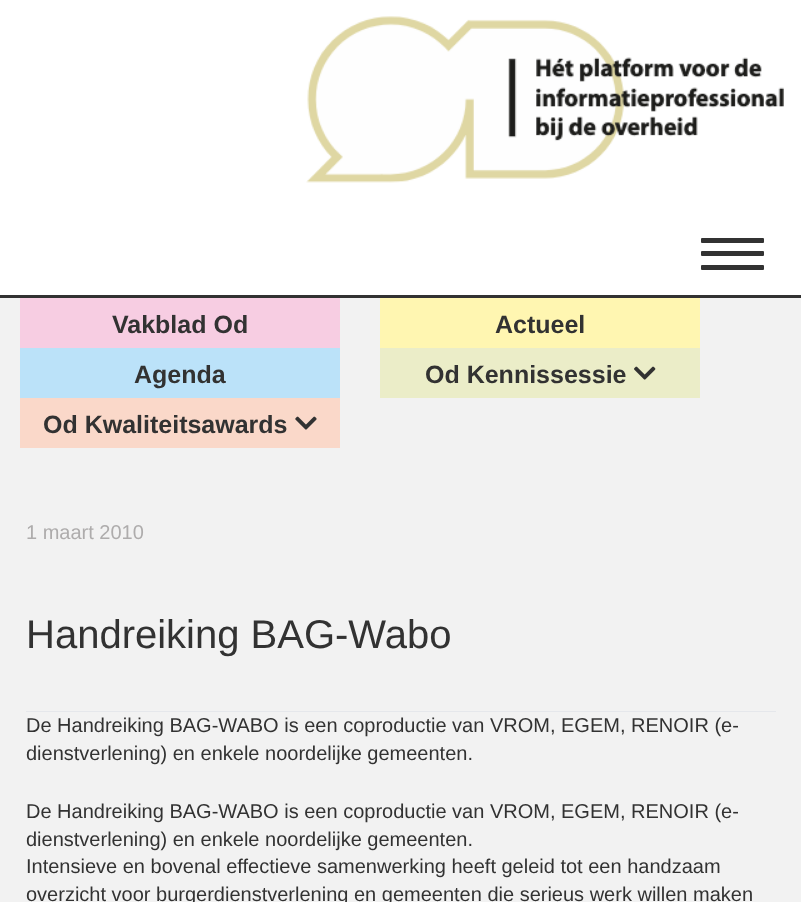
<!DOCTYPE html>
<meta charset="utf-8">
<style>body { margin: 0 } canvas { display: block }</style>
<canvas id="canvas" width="801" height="902"></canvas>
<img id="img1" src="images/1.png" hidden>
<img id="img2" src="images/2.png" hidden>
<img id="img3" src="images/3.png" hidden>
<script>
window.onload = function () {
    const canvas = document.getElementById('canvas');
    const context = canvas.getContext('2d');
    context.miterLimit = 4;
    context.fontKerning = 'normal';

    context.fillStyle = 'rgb(242, 242, 242)';
    context.fillRect(0, 0, 801, 902);
    context.fillStyle = 'rgb(255, 255, 255)';
    context.fillRect(0, 0, 801, 295);
    context.fillStyle = 'rgb(50, 50, 50)';
    context.fillRect(0, 295, 801, 3);
    context.drawImage(document.getElementById('img1'), 306, 16, 478, 167);
    context.beginPath();
    context.roundRect(701, 251, 63, 5, 1);
    context.fill();
    context.beginPath();
    context.roundRect(701, 238, 63, 5, 1);
    context.fill();
    context.beginPath();
    context.roundRect(701, 265, 63, 5, 1);
    context.fill();
    context.fillStyle = 'rgb(247, 205, 226)';
    context.fillRect(20, 298, 320, 50);
    context.fillStyle = 'rgb(255, 246, 177)';
    context.fillRect(380, 298, 320, 50);
    context.fillStyle = 'rgb(187, 226, 249)';
    context.fillRect(20, 348, 320, 50);
    context.fillStyle = 'rgb(235, 237, 200)';
    context.fillRect(380, 348, 320, 50);
    context.drawImage(document.getElementById('img2'), 634, 366, 22, 14);
    context.fillStyle = 'rgb(250, 216, 201)';
    context.fillRect(20, 398, 320, 50);
    context.drawImage(document.getElementById('img3'), 295, 416, 22, 14);
    context.fillStyle = 'rgb(229, 231, 235)';
    context.fillRect(26, 711, 750, 1);
    context.font = 'bold 25px Liberation Sans';
    context.fillStyle = 'rgb(50, 50, 50)';
    context.fillText('Vakblad Od', 112, 333);
    context.fillText('Actueel', 495, 333);
    context.fillText('Agenda', 134, 383);
    context.fillText('Od Kennissessie', 425, 383);
    context.fillText('Od Kwaliteitsawards', 43, 433);
    context.font = '20px Liberation Sans';
    context.fillStyle = 'rgb(174, 172, 172)';
    context.fillText('1 maart 2010', 26, 539);
    context.font = '40px Liberation Sans';
    context.fillStyle = 'rgb(50, 50, 50)';
    context.fillText('Handreiking BAG-Wabo', 26, 648);
    context.font = '20px Liberation Sans';
    context.fillText('De Handreiking BAG-WABO is een coproductie van VROM, EGEM, RENOIR (e-', 26, 732);
    context.fillText('dienstverlening) en enkele noordelijke gemeenten.', 26, 760);
    context.fillText('De Handreiking BAG-WABO is een coproductie van VROM, EGEM, RENOIR (e-', 26, 818);
    context.fillText('dienstverlening) en enkele noordelijke gemeenten.', 26, 846);
    context.fillText('Intensieve en bovenal effectieve samenwerking heeft geleid tot een handzaam', 26, 873);
    context.fillText('overzicht voor burgerdienstverlening en gemeenten die serieus werk willen maken', 26, 901);
};
</script>
